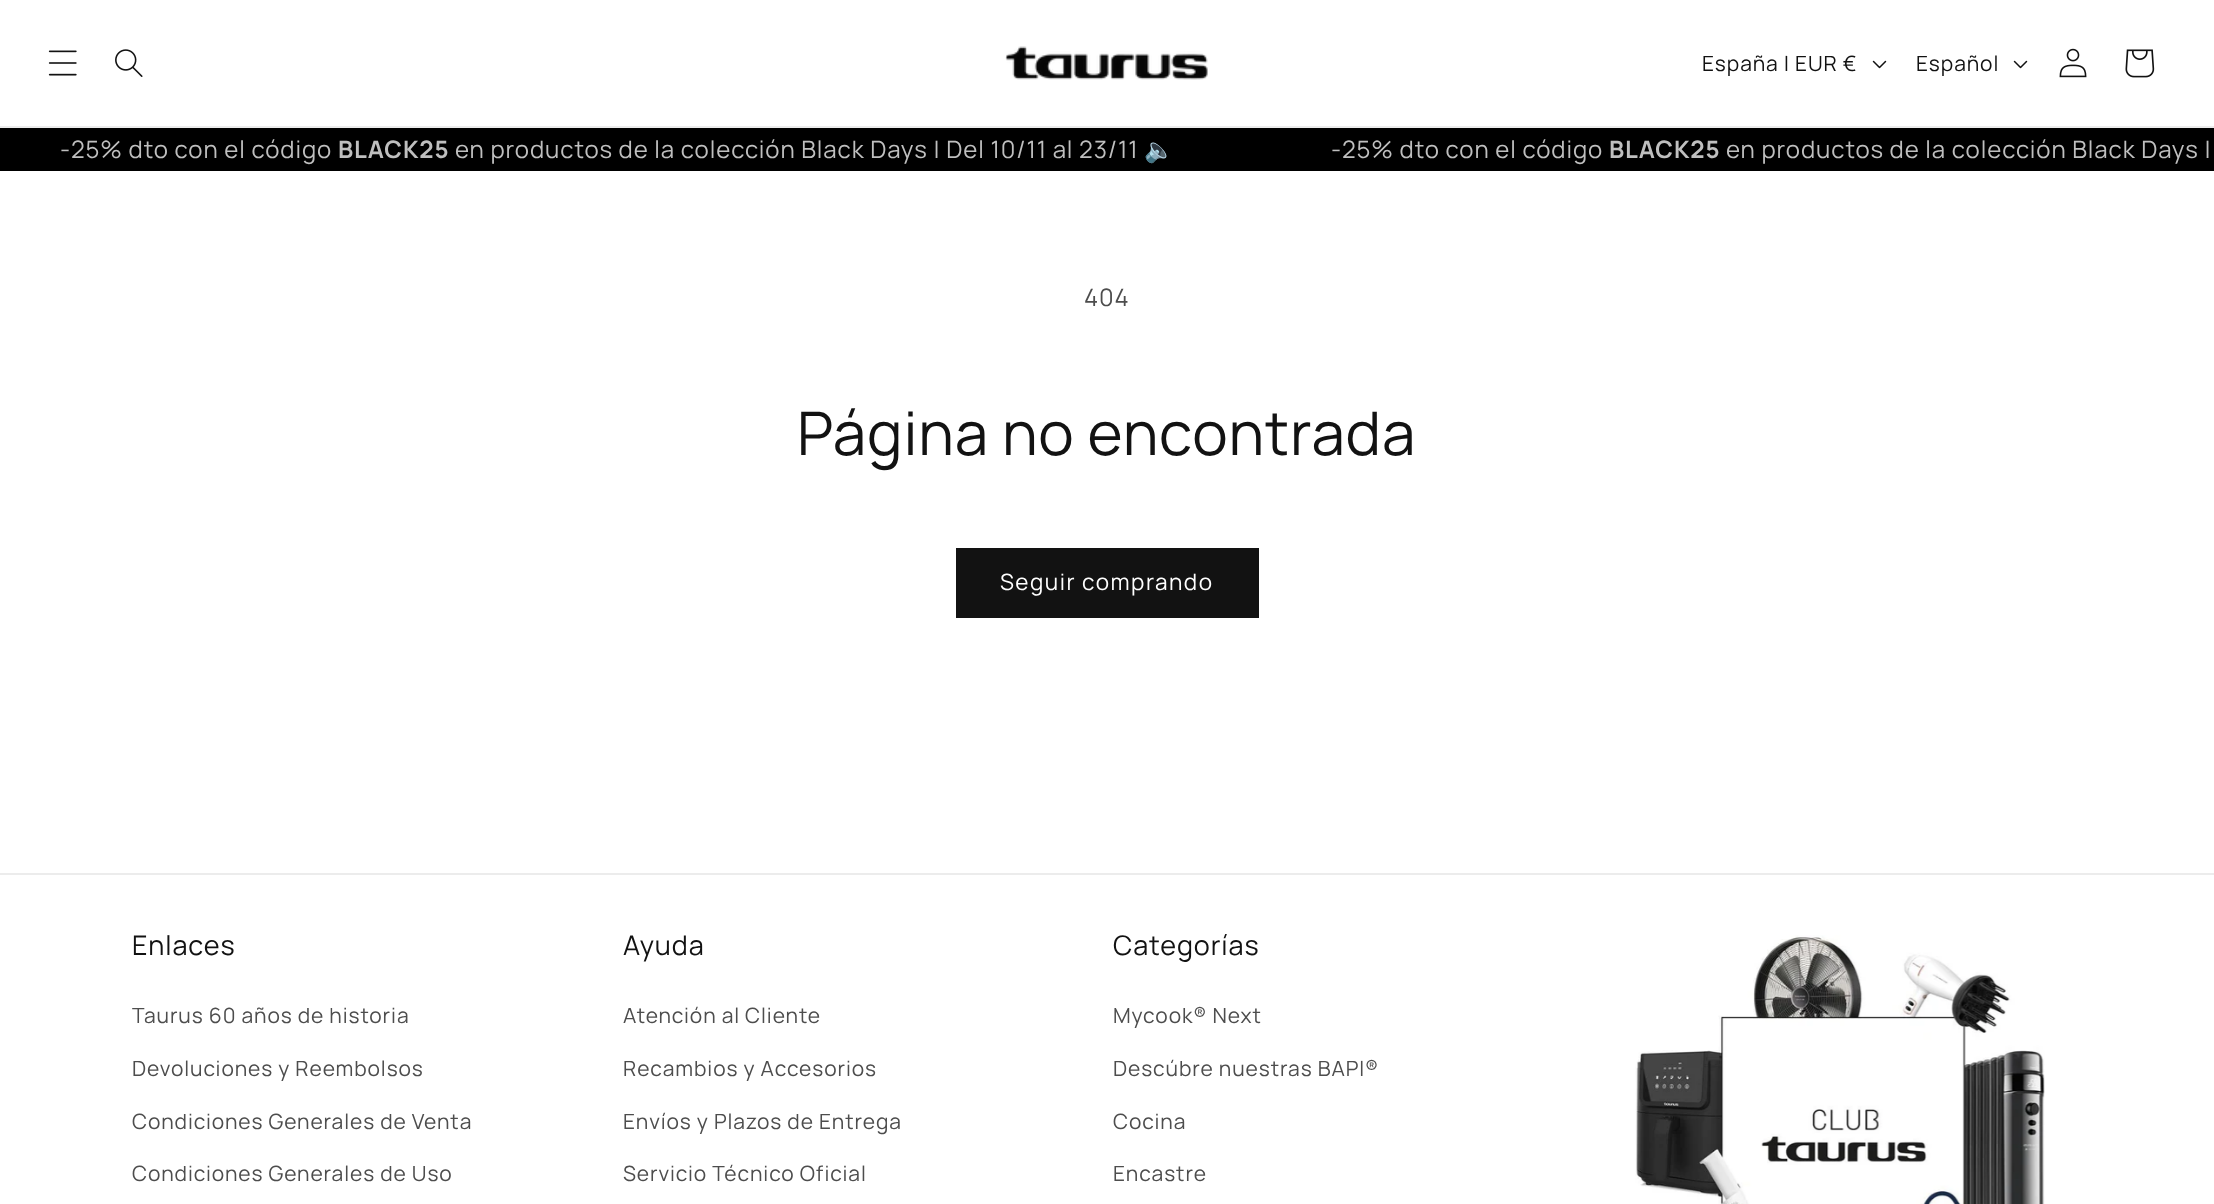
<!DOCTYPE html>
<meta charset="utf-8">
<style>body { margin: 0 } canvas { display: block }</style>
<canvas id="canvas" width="2214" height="1204"></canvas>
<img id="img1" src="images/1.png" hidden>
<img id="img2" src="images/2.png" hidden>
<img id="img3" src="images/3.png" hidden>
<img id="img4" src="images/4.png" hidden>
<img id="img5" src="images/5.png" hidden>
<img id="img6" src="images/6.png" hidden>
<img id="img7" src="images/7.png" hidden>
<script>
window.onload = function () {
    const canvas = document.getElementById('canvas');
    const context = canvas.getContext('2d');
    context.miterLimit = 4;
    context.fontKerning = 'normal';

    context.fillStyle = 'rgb(255, 255, 255)';
    context.fillRect(0, 0, 2214, 1204);
    context.fillStyle = 'rgb(236, 236, 236)';
    context.fillRect(0, 126, 2214, 2);
    context.drawImage(document.getElementById('img1'), 48, 50, 29, 26);
    context.drawImage(document.getElementById('img2'), 115, 49, 28, 28);
    context.drawImage(document.getElementById('img3'), 1005, 46, 203, 34);
    context.drawImage(document.getElementById('img4'), 1872, 60, 15, 9);
    context.drawImage(document.getElementById('img4'), 2013, 60, 15, 9);
    context.drawImage(document.getElementById('img5'), 2059, 48, 28, 30);
    context.drawImage(document.getElementById('img6'), 2125, 49, 30, 29);
    context.fillStyle = 'rgb(0, 0, 0)';
    context.fillRect(0, 128, 2214, 43);
    context.fillStyle = 'rgb(18, 18, 18)';
    context.fillRect(956, 548, 303, 70);
    context.fillStyle = 'rgb(236, 236, 236)';
    context.fillRect(0, 873, 2214, 2);
    context.drawImage(document.getElementById('img7'), 1635, 935, 410, 269);
    context.letterSpacing = '0.9px';
    context.font = '21px Manrope';
    context.fillStyle = 'rgb(18, 18, 18)';
    context.fillText('España | EUR €', 1702, 71);
    context.fillText('Español', 1916, 71);
    context.font = '24px Manrope';
    context.fillStyle = 'rgb(191, 191, 191)';
    context.fillText('-25% dto con el código', 60, 158);
    context.font = 'bold 24px Manrope';
    context.fillText('BLACK25', 338, 158);
    context.font = '24px Manrope';
    context.fillText('en productos de la colección Black Days | Del 10/11 al 23/11', 455, 158);
    context.font = '24px Noto Color Emoji';
    context.fillText('🔈', 1144, 158);
    context.font = '24px Manrope';
    context.fillText('-25% dto con el código', 1331, 158);
    context.font = 'bold 24px Manrope';
    context.fillText('BLACK25', 1609, 158);
    context.font = '24px Manrope';
    context.fillText('en productos de la colección Black Days |', 1726, 158);
    context.fillStyle = 'rgb(77, 77, 77)';
    context.fillText('404', 1084, 306);
    context.font = '60px Manrope';
    context.fillStyle = 'rgb(18, 18, 18)';
    context.fillText('Página no encontrada', 797, 455);
    context.letterSpacing = '1.5px';
    context.font = '22.5px Manrope';
    context.fillStyle = 'rgb(255, 255, 255)';
    context.fillText('Seguir comprando', 1000, 590);
    context.letterSpacing = '0.9px';
    context.font = '27px Manrope';
    context.fillStyle = 'rgb(18, 18, 18)';
    context.fillText('Enlaces', 132, 955);
    context.font = '21px Manrope';
    context.fillStyle = 'rgb(77, 77, 77)';
    context.fillText('Taurus 60 años de historia', 132, 1023);
    context.fillText('Devoluciones y Reembolsos', 132, 1076);
    context.fillText('Condiciones Generales de Venta', 132, 1129);
    context.fillText('Condiciones Generales de Uso', 132, 1181);
    context.font = '27px Manrope';
    context.fillStyle = 'rgb(18, 18, 18)';
    context.fillText('Ayuda', 623, 955);
    context.font = '21px Manrope';
    context.fillStyle = 'rgb(77, 77, 77)';
    context.fillText('Atención al Cliente', 623, 1023);
    context.fillText('Recambios y Accesorios', 623, 1076);
    context.fillText('Envíos y Plazos de Entrega', 623, 1129);
    context.fillText('Servicio Técnico Oficial', 623, 1181);
    context.font = '27px Manrope';
    context.fillStyle = 'rgb(18, 18, 18)';
    context.fillText('Categorías', 1113, 955);
    context.font = '21px Manrope';
    context.fillStyle = 'rgb(77, 77, 77)';
    context.fillText('Mycook® Next', 1113, 1023);
    context.fillText('Descúbre nuestras BAPI®', 1113, 1076);
    context.fillText('Cocina', 1113, 1129);
    context.fillText('Encastre', 1113, 1181);
};
</script>
